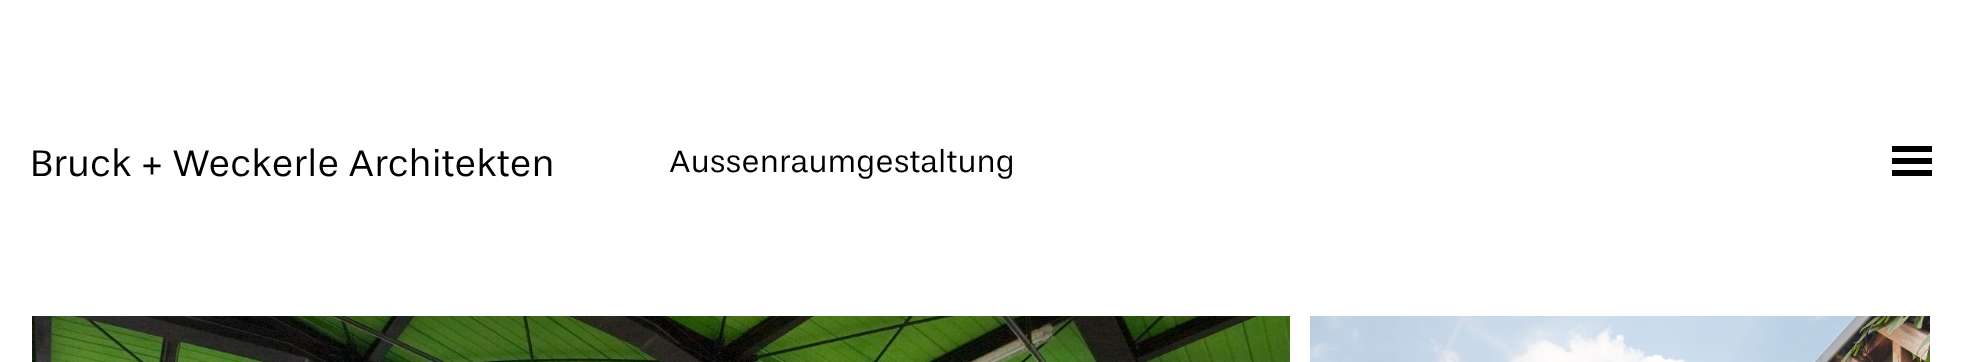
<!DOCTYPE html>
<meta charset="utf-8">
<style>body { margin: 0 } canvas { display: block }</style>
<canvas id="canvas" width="1961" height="362"></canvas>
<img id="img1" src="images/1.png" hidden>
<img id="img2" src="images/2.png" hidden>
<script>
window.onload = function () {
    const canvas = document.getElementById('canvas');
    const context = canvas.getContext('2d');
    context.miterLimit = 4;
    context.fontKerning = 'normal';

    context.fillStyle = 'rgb(255, 255, 255)';
    context.fillRect(0, 0, 1961, 362);
    context.fillStyle = 'rgb(0, 0, 0)';
    context.beginPath();
    context.moveTo(1932, 152);
    context.lineTo(1932, 146);
    context.lineTo(1892, 146);
    context.lineTo(1892, 152);
    context.closePath();
    context.moveTo(1932, 164);
    context.lineTo(1932, 158);
    context.lineTo(1892, 158);
    context.lineTo(1892, 164);
    context.closePath();
    context.moveTo(1932, 176);
    context.lineTo(1932, 170);
    context.lineTo(1892, 170);
    context.lineTo(1892, 176);
    context.closePath();
    context.fill();
    context.drawImage(document.getElementById('img1'), 32, 316, 1258, 46);
    context.drawImage(document.getElementById('img2'), 1310, 316, 620, 46);
    context.font = '38.4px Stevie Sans';
    context.fillText('Bruck + Weckerle Architekten', 30, 176);
    context.font = '32px Stevie Sans';
    context.fillText('Aussenraumgestaltung', 669, 172);
};
</script>
